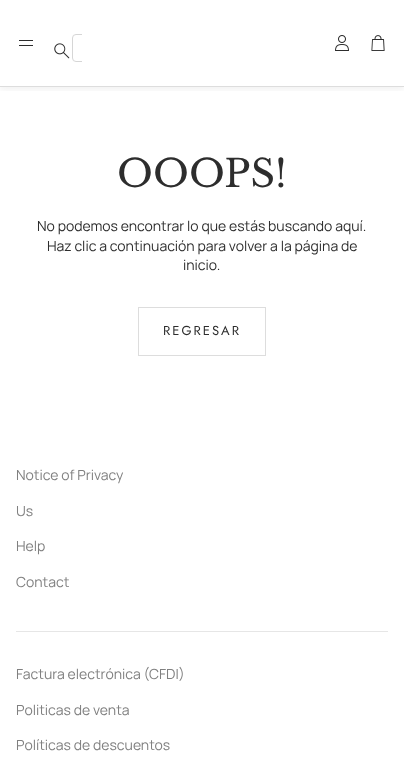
<!DOCTYPE html>
<meta charset="utf-8">
<style>body { margin: 0 } canvas { display: block }</style>
<canvas id="canvas" width="404" height="768"></canvas>
<img id="img1" src="images/1.png" hidden>
<img id="img2" src="images/2.png" hidden>
<img id="img3" src="images/3.png" hidden>
<script>
window.onload = function () {
    const canvas = document.getElementById('canvas');
    const context = canvas.getContext('2d');
    context.miterLimit = 4;
    context.fontKerning = 'normal';

    context.fillStyle = 'rgb(255, 255, 255)';
    context.fillRect(0, 0, 404, 768);
    context.save();
    context.beginPath();
    context.rect(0, 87, 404, 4);
    context.clip();
    context.fillStyle = 'rgba(0, 0, 0, 0.05)';
    context.filter = 'blur(3px)';
    context.beginPath();
    context.rect(0, 3, 404, 87);
    context.fill();
    context.filter = 'none';
    context.restore();
    context.fillStyle = 'rgb(221, 221, 221)';
    context.fillRect(0, 86, 404, 1);
    context.fillStyle = 'rgb(45, 45, 45)';
    context.fillRect(19, 40, 14, 1);
    context.fillRect(19, 45, 14, 1);
    context.drawImage(document.getElementById('img1'), 54, 43, 16, 16);
    context.save();
    context.beginPath();
    context.rect(52, 14, 30, 58);
    context.clip();
    context.beginPath();
    context.roundRect(72.5, 34.5, 209, 27, 3.5);
    context.strokeStyle = 'rgb(214, 214, 214)';
    context.stroke();
    context.restore();
    context.drawImage(document.getElementById('img2'), 335, 35, 14, 16);
    context.drawImage(document.getElementById('img3'), 371, 35, 14, 16);
    context.strokeStyle = 'rgb(221, 221, 221)';
    context.strokeRect(138.5, 307.5, 127, 48);
    context.fillStyle = 'rgb(230, 230, 230)';
    context.fillRect(16, 631, 372, 1);
    context.font = '38px Libre Baskerville';
    context.fillStyle = 'rgb(45, 45, 45)';
    context.fillText('OOOPS!', 117, 187);
    context.font = '14px Manrope';
    context.fillText('No podemos encontrar lo que estás buscando aquí.', 37, 231);
    context.fillText('Haz clic a continuación para volver a la página de', 47, 251);
    context.fillText('inicio.', 183, 270);
    context.letterSpacing = '2px';
    context.font = '13px Jost';
    context.fillText('REGRESAR', 163, 335);
    context.letterSpacing = '0px';
    context.font = '14px Manrope';
    context.fillStyle = 'rgb(128, 128, 128)';
    context.fillText('Notice of Privacy', 16, 480);
    context.fillText('Us', 16, 516);
    context.fillText('Help', 16, 551);
    context.fillText('Contact', 16, 587);
    context.fillText('Factura electrónica (CFDI)', 16, 679);
    context.fillText('Politicas de venta', 16, 715);
    context.fillText('Políticas de descuentos', 16, 750);
};
</script>
